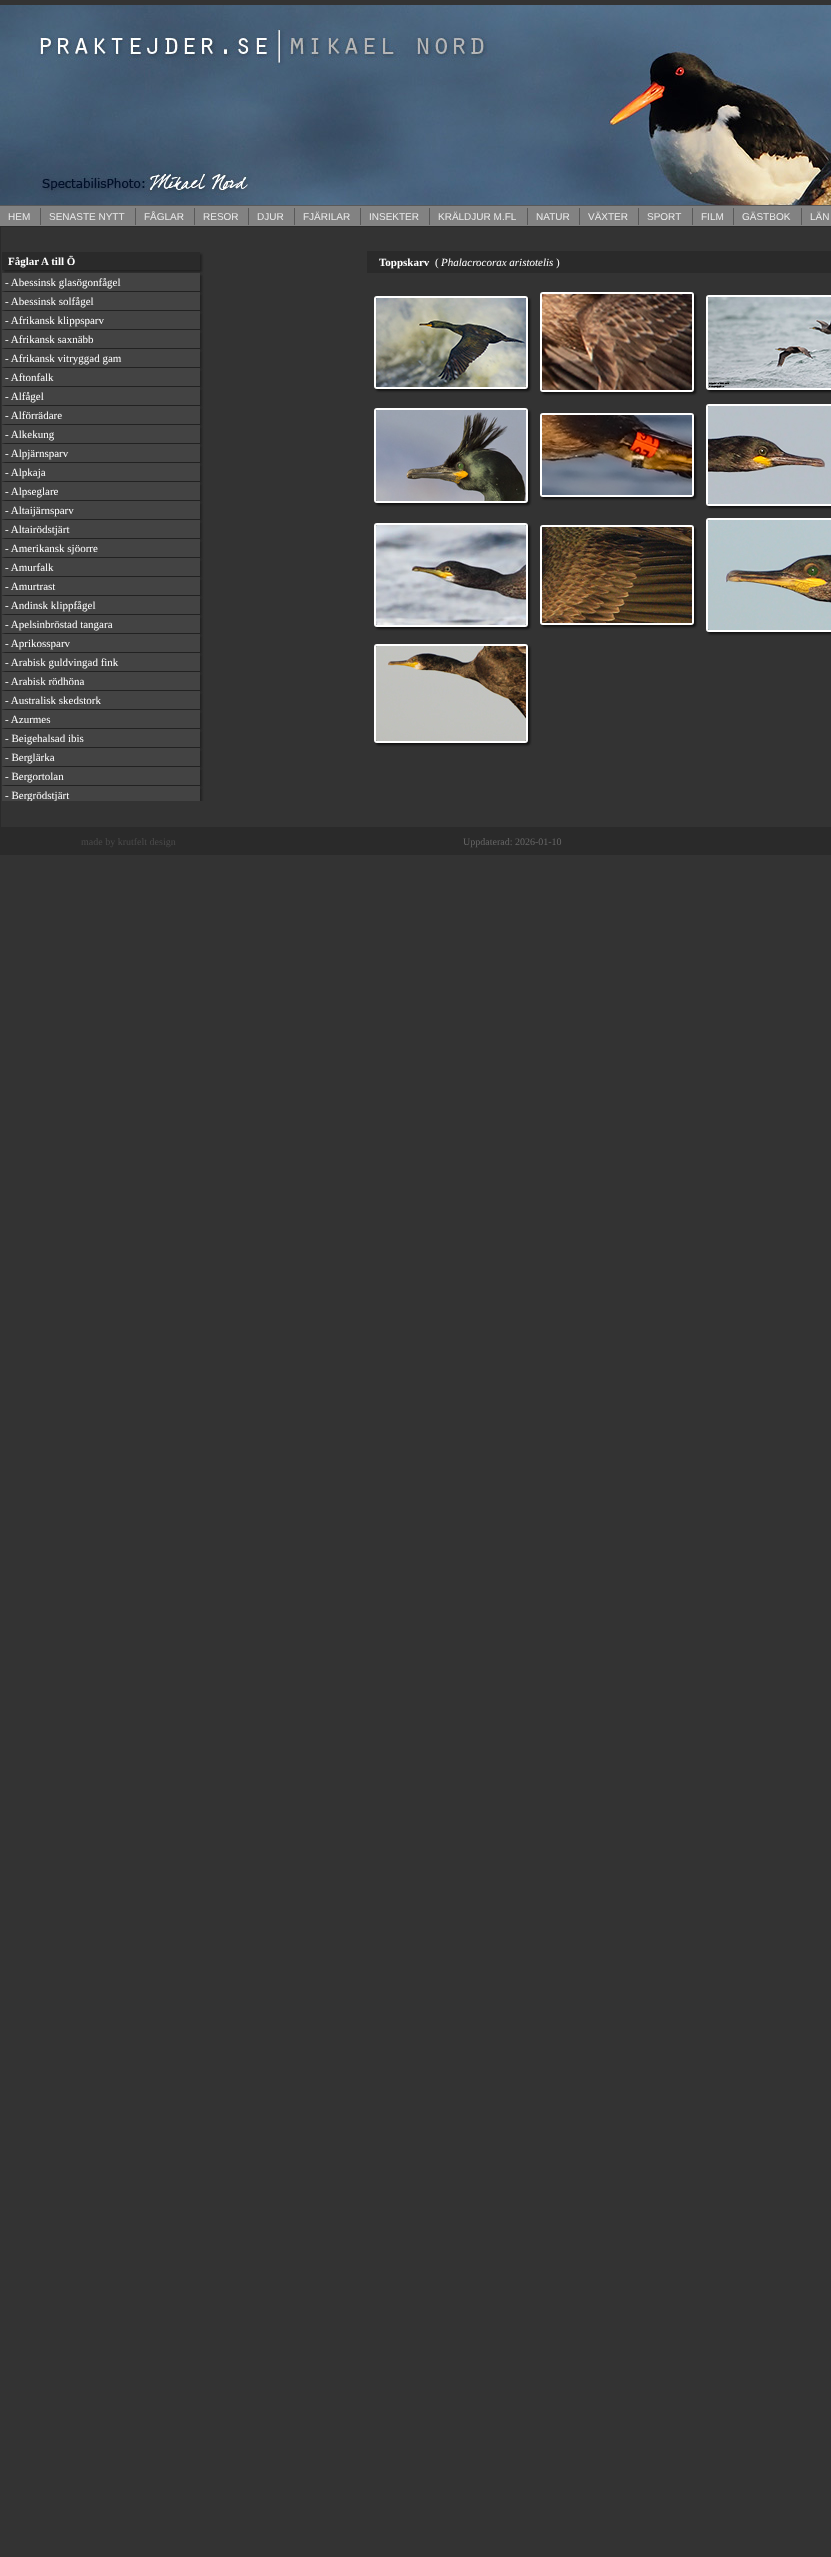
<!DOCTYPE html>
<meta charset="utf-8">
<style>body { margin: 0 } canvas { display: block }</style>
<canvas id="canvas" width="831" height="2557"></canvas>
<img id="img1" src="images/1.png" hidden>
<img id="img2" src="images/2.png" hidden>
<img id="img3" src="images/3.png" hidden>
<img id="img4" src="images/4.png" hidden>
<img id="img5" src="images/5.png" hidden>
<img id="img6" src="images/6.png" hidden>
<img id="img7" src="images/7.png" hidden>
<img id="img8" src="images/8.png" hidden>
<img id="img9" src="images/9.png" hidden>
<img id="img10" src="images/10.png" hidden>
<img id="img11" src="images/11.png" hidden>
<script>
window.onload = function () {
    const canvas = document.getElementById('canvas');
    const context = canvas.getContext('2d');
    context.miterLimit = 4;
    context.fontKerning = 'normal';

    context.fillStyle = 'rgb(51, 51, 51)';
    context.fillRect(0, 0, 831, 2557);
    context.drawImage(document.getElementById('img1'), 0, 5, 831, 200);
    context.fillStyle = 'rgb(89, 89, 89)';
    context.fillRect(0, 205, 831, 1);
    context.fillStyle = 'rgb(130, 130, 130)';
    context.fillRect(0, 206, 831, 20);
    context.fillStyle = 'rgb(89, 89, 89)';
    context.fillRect(40, 208, 1, 17);
    context.fillRect(135, 208, 1, 17);
    context.fillRect(194, 208, 1, 17);
    context.fillRect(248, 208, 1, 17);
    context.fillRect(294, 208, 1, 17);
    context.fillRect(360, 208, 1, 17);
    context.fillRect(429, 208, 1, 17);
    context.fillRect(527, 208, 1, 17);
    context.fillRect(579, 208, 1, 17);
    context.fillRect(638, 208, 1, 17);
    context.fillRect(692, 208, 1, 17);
    context.fillRect(733, 208, 1, 17);
    context.fillRect(801, 208, 1, 17);
    context.fillStyle = 'rgb(42, 42, 42)';
    context.fillRect(0, 226, 831, 1);
    context.fillRect(0, 827, 831, 1);
    context.fillRect(0, 226, 1, 602);
    context.fillStyle = 'rgb(33, 33, 33)';
    context.filter = 'blur(1px)';
    context.beginPath();
    context.rect(4, 254, 198, 18);
    context.fill();
    context.filter = 'none';
    context.fillStyle = 'rgb(42, 42, 42)';
    context.fillRect(2, 252, 198, 18);
    context.fillStyle = 'rgb(33, 33, 33)';
    context.filter = 'blur(1px)';
    context.beginPath();
    context.rect(4, 275, 198, 18);
    context.fill();
    context.filter = 'none';
    context.fillStyle = 'rgb(67, 67, 67)';
    context.fillRect(2, 273, 198, 18);
    context.fillStyle = 'rgb(33, 33, 33)';
    context.filter = 'blur(1px)';
    context.beginPath();
    context.rect(4, 294, 198, 18);
    context.fill();
    context.filter = 'none';
    context.fillStyle = 'rgb(67, 67, 67)';
    context.fillRect(2, 292, 198, 18);
    context.fillStyle = 'rgb(33, 33, 33)';
    context.filter = 'blur(1px)';
    context.beginPath();
    context.rect(4, 313, 198, 18);
    context.fill();
    context.filter = 'none';
    context.fillStyle = 'rgb(67, 67, 67)';
    context.fillRect(2, 311, 198, 18);
    context.fillStyle = 'rgb(33, 33, 33)';
    context.filter = 'blur(1px)';
    context.beginPath();
    context.rect(4, 332, 198, 18);
    context.fill();
    context.filter = 'none';
    context.fillStyle = 'rgb(67, 67, 67)';
    context.fillRect(2, 330, 198, 18);
    context.fillStyle = 'rgb(33, 33, 33)';
    context.filter = 'blur(1px)';
    context.beginPath();
    context.rect(4, 351, 198, 18);
    context.fill();
    context.filter = 'none';
    context.fillStyle = 'rgb(67, 67, 67)';
    context.fillRect(2, 349, 198, 18);
    context.fillStyle = 'rgb(33, 33, 33)';
    context.filter = 'blur(1px)';
    context.beginPath();
    context.rect(4, 370, 198, 18);
    context.fill();
    context.filter = 'none';
    context.fillStyle = 'rgb(67, 67, 67)';
    context.fillRect(2, 368, 198, 18);
    context.fillStyle = 'rgb(33, 33, 33)';
    context.filter = 'blur(1px)';
    context.beginPath();
    context.rect(4, 389, 198, 18);
    context.fill();
    context.filter = 'none';
    context.fillStyle = 'rgb(67, 67, 67)';
    context.fillRect(2, 387, 198, 18);
    context.fillStyle = 'rgb(33, 33, 33)';
    context.filter = 'blur(1px)';
    context.beginPath();
    context.rect(4, 408, 198, 18);
    context.fill();
    context.filter = 'none';
    context.fillStyle = 'rgb(67, 67, 67)';
    context.fillRect(2, 406, 198, 18);
    context.fillStyle = 'rgb(33, 33, 33)';
    context.filter = 'blur(1px)';
    context.beginPath();
    context.rect(4, 427, 198, 18);
    context.fill();
    context.filter = 'none';
    context.fillStyle = 'rgb(67, 67, 67)';
    context.fillRect(2, 425, 198, 18);
    context.fillStyle = 'rgb(33, 33, 33)';
    context.filter = 'blur(1px)';
    context.beginPath();
    context.rect(4, 446, 198, 18);
    context.fill();
    context.filter = 'none';
    context.fillStyle = 'rgb(67, 67, 67)';
    context.fillRect(2, 444, 198, 18);
    context.fillStyle = 'rgb(33, 33, 33)';
    context.filter = 'blur(1px)';
    context.beginPath();
    context.rect(4, 465, 198, 18);
    context.fill();
    context.filter = 'none';
    context.fillStyle = 'rgb(67, 67, 67)';
    context.fillRect(2, 463, 198, 18);
    context.fillStyle = 'rgb(33, 33, 33)';
    context.filter = 'blur(1px)';
    context.beginPath();
    context.rect(4, 484, 198, 18);
    context.fill();
    context.filter = 'none';
    context.fillStyle = 'rgb(67, 67, 67)';
    context.fillRect(2, 482, 198, 18);
    context.fillStyle = 'rgb(33, 33, 33)';
    context.filter = 'blur(1px)';
    context.beginPath();
    context.rect(4, 503, 198, 18);
    context.fill();
    context.filter = 'none';
    context.fillStyle = 'rgb(67, 67, 67)';
    context.fillRect(2, 501, 198, 18);
    context.fillStyle = 'rgb(33, 33, 33)';
    context.filter = 'blur(1px)';
    context.beginPath();
    context.rect(4, 522, 198, 18);
    context.fill();
    context.filter = 'none';
    context.fillStyle = 'rgb(67, 67, 67)';
    context.fillRect(2, 520, 198, 18);
    context.fillStyle = 'rgb(33, 33, 33)';
    context.filter = 'blur(1px)';
    context.beginPath();
    context.rect(4, 541, 198, 18);
    context.fill();
    context.filter = 'none';
    context.fillStyle = 'rgb(67, 67, 67)';
    context.fillRect(2, 539, 198, 18);
    context.fillStyle = 'rgb(33, 33, 33)';
    context.filter = 'blur(1px)';
    context.beginPath();
    context.rect(4, 560, 198, 18);
    context.fill();
    context.filter = 'none';
    context.fillStyle = 'rgb(67, 67, 67)';
    context.fillRect(2, 558, 198, 18);
    context.fillStyle = 'rgb(33, 33, 33)';
    context.filter = 'blur(1px)';
    context.beginPath();
    context.rect(4, 579, 198, 18);
    context.fill();
    context.filter = 'none';
    context.fillStyle = 'rgb(67, 67, 67)';
    context.fillRect(2, 577, 198, 18);
    context.fillStyle = 'rgb(33, 33, 33)';
    context.filter = 'blur(1px)';
    context.beginPath();
    context.rect(4, 598, 198, 18);
    context.fill();
    context.filter = 'none';
    context.fillStyle = 'rgb(67, 67, 67)';
    context.fillRect(2, 596, 198, 18);
    context.fillStyle = 'rgb(33, 33, 33)';
    context.filter = 'blur(1px)';
    context.beginPath();
    context.rect(4, 617, 198, 18);
    context.fill();
    context.filter = 'none';
    context.fillStyle = 'rgb(67, 67, 67)';
    context.fillRect(2, 615, 198, 18);
    context.fillStyle = 'rgb(33, 33, 33)';
    context.filter = 'blur(1px)';
    context.beginPath();
    context.rect(4, 636, 198, 18);
    context.fill();
    context.filter = 'none';
    context.fillStyle = 'rgb(67, 67, 67)';
    context.fillRect(2, 634, 198, 18);
    context.fillStyle = 'rgb(33, 33, 33)';
    context.filter = 'blur(1px)';
    context.beginPath();
    context.rect(4, 655, 198, 18);
    context.fill();
    context.filter = 'none';
    context.fillStyle = 'rgb(67, 67, 67)';
    context.fillRect(2, 653, 198, 18);
    context.fillStyle = 'rgb(33, 33, 33)';
    context.filter = 'blur(1px)';
    context.beginPath();
    context.rect(4, 674, 198, 18);
    context.fill();
    context.filter = 'none';
    context.fillStyle = 'rgb(67, 67, 67)';
    context.fillRect(2, 672, 198, 18);
    context.fillStyle = 'rgb(33, 33, 33)';
    context.filter = 'blur(1px)';
    context.beginPath();
    context.rect(4, 693, 198, 18);
    context.fill();
    context.filter = 'none';
    context.fillStyle = 'rgb(67, 67, 67)';
    context.fillRect(2, 691, 198, 18);
    context.fillStyle = 'rgb(33, 33, 33)';
    context.filter = 'blur(1px)';
    context.beginPath();
    context.rect(4, 712, 198, 18);
    context.fill();
    context.filter = 'none';
    context.fillStyle = 'rgb(67, 67, 67)';
    context.fillRect(2, 710, 198, 18);
    context.fillStyle = 'rgb(33, 33, 33)';
    context.filter = 'blur(1px)';
    context.beginPath();
    context.rect(4, 731, 198, 18);
    context.fill();
    context.filter = 'none';
    context.fillStyle = 'rgb(67, 67, 67)';
    context.fillRect(2, 729, 198, 18);
    context.fillStyle = 'rgb(33, 33, 33)';
    context.filter = 'blur(1px)';
    context.beginPath();
    context.rect(4, 750, 198, 18);
    context.fill();
    context.filter = 'none';
    context.fillStyle = 'rgb(67, 67, 67)';
    context.fillRect(2, 748, 198, 18);
    context.fillStyle = 'rgb(33, 33, 33)';
    context.filter = 'blur(1px)';
    context.beginPath();
    context.rect(4, 769, 198, 18);
    context.fill();
    context.filter = 'none';
    context.fillStyle = 'rgb(67, 67, 67)';
    context.fillRect(2, 767, 198, 18);
    context.save();
    context.beginPath();
    context.rect(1, 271, 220, 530);
    context.clip();
    context.fillStyle = 'rgb(33, 33, 33)';
    context.filter = 'blur(1px)';
    context.beginPath();
    context.rect(4, 788, 198, 18);
    context.fill();
    context.filter = 'none';
    context.restore();
    context.fillRect(2, 786, 198, 15);
    context.fillStyle = 'rgb(42, 42, 42)';
    context.fillRect(367, 251, 464, 22);
    context.fillStyle = 'rgb(17, 17, 17)';
    context.filter = 'blur(1px)';
    context.beginPath();
    context.roundRect(376, 298, 154, 93, 3);
    context.fill();
    context.filter = 'none';
    context.beginPath();
    context.roundRect(375, 297, 152, 91, 2);
    context.strokeStyle = 'rgb(255, 255, 255)';
    context.lineWidth = 2;
    context.stroke();
    context.drawImage(document.getElementById('img2'), 376, 298, 150, 89);
    context.filter = 'blur(1px)';
    context.beginPath();
    context.roundRect(542, 294, 154, 100, 3);
    context.fill();
    context.filter = 'none';
    context.beginPath();
    context.roundRect(541, 293, 152, 98, 2);
    context.stroke();
    context.drawImage(document.getElementById('img3'), 542, 294, 150, 96);
    context.filter = 'blur(1px)';
    context.beginPath();
    context.roundRect(708, 297, 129, 95, 3);
    context.fill();
    context.filter = 'none';
    context.beginPath();
    context.roundRect(707, 296, 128, 93, 2);
    context.stroke();
    context.drawImage(document.getElementById('img4'), 708, 297, 123, 91);
    context.filter = 'blur(1px)';
    context.beginPath();
    context.roundRect(376, 410, 154, 95, 3);
    context.fill();
    context.filter = 'none';
    context.beginPath();
    context.roundRect(375, 409, 152, 93, 2);
    context.stroke();
    context.drawImage(document.getElementById('img5'), 376, 410, 150, 91);
    context.filter = 'blur(1px)';
    context.beginPath();
    context.roundRect(542, 415, 154, 84, 3);
    context.fill();
    context.filter = 'none';
    context.beginPath();
    context.roundRect(541, 414, 152, 82, 2);
    context.stroke();
    context.drawImage(document.getElementById('img6'), 542, 415, 150, 80);
    context.filter = 'blur(1px)';
    context.beginPath();
    context.roundRect(708, 406, 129, 102, 3);
    context.fill();
    context.filter = 'none';
    context.beginPath();
    context.roundRect(707, 405, 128, 100, 2);
    context.stroke();
    context.drawImage(document.getElementById('img7'), 708, 406, 123, 98);
    context.filter = 'blur(1px)';
    context.beginPath();
    context.roundRect(376, 525, 154, 104, 3);
    context.fill();
    context.filter = 'none';
    context.beginPath();
    context.roundRect(375, 524, 152, 102, 2);
    context.stroke();
    context.drawImage(document.getElementById('img8'), 376, 525, 150, 100);
    context.filter = 'blur(1px)';
    context.beginPath();
    context.roundRect(542, 527, 154, 100, 3);
    context.fill();
    context.filter = 'none';
    context.beginPath();
    context.roundRect(541, 526, 152, 98, 2);
    context.stroke();
    context.drawImage(document.getElementById('img9'), 542, 527, 150, 96);
    context.filter = 'blur(1px)';
    context.beginPath();
    context.roundRect(708, 520, 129, 114, 3);
    context.fill();
    context.filter = 'none';
    context.beginPath();
    context.roundRect(707, 519, 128, 112, 2);
    context.stroke();
    context.drawImage(document.getElementById('img10'), 708, 520, 123, 110);
    context.filter = 'blur(1px)';
    context.beginPath();
    context.roundRect(376, 646, 154, 99, 3);
    context.fill();
    context.filter = 'none';
    context.beginPath();
    context.roundRect(375, 645, 152, 97, 2);
    context.stroke();
    context.drawImage(document.getElementById('img11'), 376, 646, 150, 95);
    context.fillStyle = 'rgb(42, 42, 42)';
    context.fillRect(0, 828, 831, 27);
    context.font = '10px Liberation Sans';
    context.fillStyle = 'rgb(234, 234, 234)';
    context.fillText('HEM', 8, 220);
    context.fillText('SENASTE NYTT', 49, 220);
    context.fillText('FÅGLAR', 144, 220);
    context.fillText('RESOR', 203, 220);
    context.fillText('DJUR', 257, 220);
    context.fillText('FJÄRILAR', 303, 220);
    context.fillText('INSEKTER', 369, 220);
    context.fillText('KRÄLDJUR M.FL', 438, 220);
    context.fillText('NATUR', 536, 220);
    context.fillText('VÄXTER', 588, 220);
    context.fillText('SPORT', 647, 220);
    context.fillText('FILM', 701, 220);
    context.fillText('GÄSTBOK', 742, 220);
    context.fillText('LÄN', 810, 220);
    context.font = 'bold 11px Liberation Serif';
    context.fillStyle = 'rgb(255, 255, 255)';
    context.fillText('Fåglar A till Ö', 8, 265);
    context.font = '11px Liberation Serif';
    context.fillText('- Abessinsk glasögonfågel', 5, 286);
    context.fillText('- Abessinsk solfågel', 5, 305);
    context.fillText('- Afrikansk klippsparv', 5, 324);
    context.fillText('- Afrikansk saxnäbb', 5, 343);
    context.fillText('- Afrikansk vitryggad gam', 5, 362);
    context.fillText('- Aftonfalk', 5, 381);
    context.fillText('- Alfågel', 5, 400);
    context.fillText('- Alförrädare', 5, 419);
    context.fillText('- Alkekung', 5, 438);
    context.fillText('- Alpjärnsparv', 5, 457);
    context.fillText('- Alpkaja', 5, 476);
    context.fillText('- Alpseglare', 5, 495);
    context.fillText('- Altaijärnsparv', 5, 514);
    context.fillText('- Altairödstjärt', 5, 533);
    context.fillText('- Amerikansk sjöorre', 5, 552);
    context.fillText('- Amurfalk', 5, 571);
    context.fillText('- Amurtrast', 5, 590);
    context.fillText('- Andinsk klippfågel', 5, 609);
    context.fillText('- Apelsinbröstad tangara', 5, 628);
    context.fillText('- Aprikossparv', 5, 647);
    context.fillText('- Arabisk guldvingad fink', 5, 666);
    context.fillText('- Arabisk rödhöna', 5, 685);
    context.fillText('- Australisk skedstork', 5, 704);
    context.fillText('- Azurmes', 5, 723);
    context.fillText('- Beigehalsad ibis', 5, 742);
    context.fillText('- Berglärka', 5, 761);
    context.fillText('- Bergortolan', 5, 780);
    context.save();
    context.beginPath();
    context.rect(1, 271, 220, 530);
    context.clip();
    context.fillText('- Bergrödstjärt', 5, 799);
    context.restore();
    context.font = 'bold 11px Liberation Serif';
    context.fillText('Toppskarv', 379, 266);
    context.font = '11px Liberation Serif';
    context.fillText('(', 435, 266);
    context.font = 'italic 11px Liberation Serif';
    context.fillText('Phalacrocorax aristotelis', 441, 266);
    context.font = '11px Liberation Serif';
    context.fillText(')', 556, 266);
    context.font = '10px Liberation Serif';
    context.fillStyle = 'rgb(75, 75, 75)';
    context.fillText('made by krutfelt design', 81, 845);
    context.fillStyle = 'rgb(102, 102, 102)';
    context.fillText('Uppdaterad: 2026-01-10', 463, 845);
};
</script>
